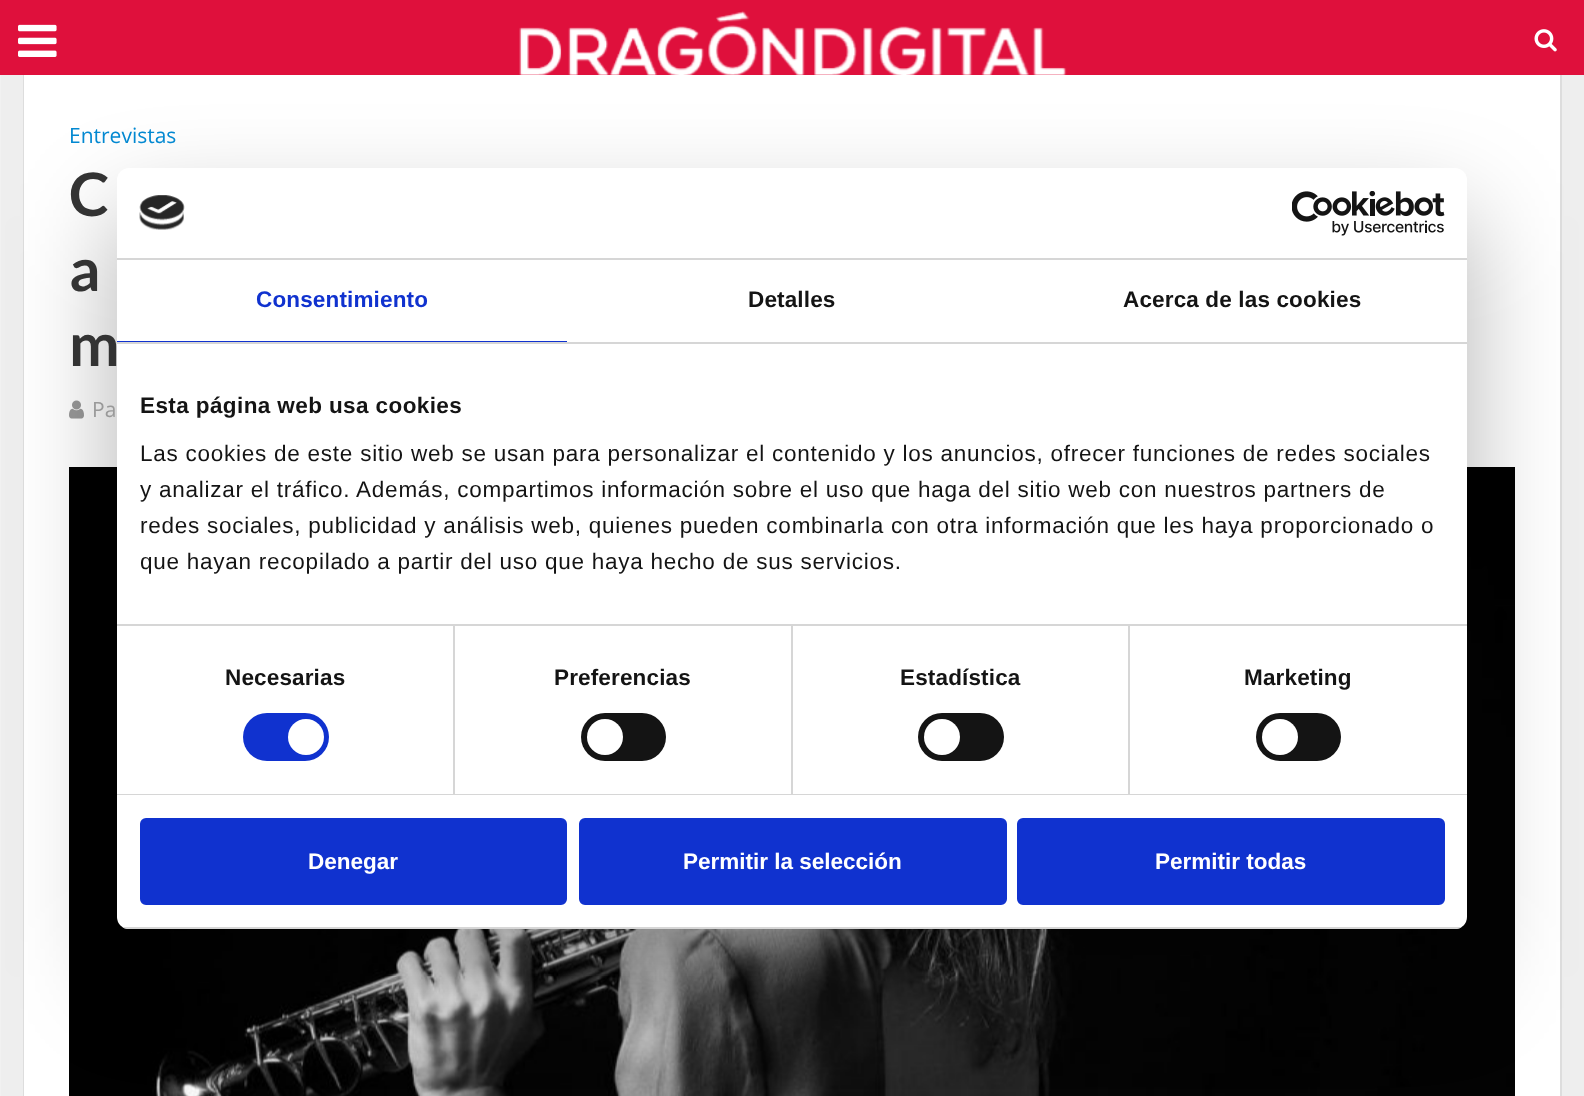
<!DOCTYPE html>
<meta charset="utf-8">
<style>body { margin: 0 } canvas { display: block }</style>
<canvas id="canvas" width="1584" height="1096"></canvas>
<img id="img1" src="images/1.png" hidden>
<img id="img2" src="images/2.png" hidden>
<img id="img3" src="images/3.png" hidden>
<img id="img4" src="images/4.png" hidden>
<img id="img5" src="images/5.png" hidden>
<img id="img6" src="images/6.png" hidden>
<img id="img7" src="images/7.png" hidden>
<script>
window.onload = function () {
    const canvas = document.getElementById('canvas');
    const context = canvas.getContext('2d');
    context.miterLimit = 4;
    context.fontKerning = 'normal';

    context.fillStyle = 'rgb(238, 238, 238)';
    context.fillRect(0, 0, 1584, 1096);
    context.strokeStyle = 'rgb(221, 221, 221)';
    context.lineWidth = 2;
    context.strokeRect(24, 75, 1537, 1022);
    context.fillStyle = 'rgb(223, 16, 60)';
    context.fillRect(0, 0, 1584, 75);
    context.drawImage(document.getElementById('img1'), 18, 24, 39, 33);
    context.drawImage(document.getElementById('img2'), 519, 11, 548, 64);
    context.drawImage(document.getElementById('img3'), 1534, 29, 23, 23);
    context.fillStyle = 'rgb(241, 241, 241)';
    context.fillRect(0, 75, 1, 1021);
    context.fillStyle = 'rgb(255, 255, 255)';
    context.fillRect(24, 75, 1536, 1021);
    context.drawImage(document.getElementById('img4'), 69, 400, 15, 19);
    context.drawImage(document.getElementById('img5'), 69, 467, 1446, 629);
    context.fillStyle = 'rgba(0, 0, 0, 0.3)';
    context.filter = 'blur(51px)';
    context.beginPath();
    context.roundRect(117, 216, 1350, 761, 12);
    context.fill();
    context.filter = 'none';
    context.fillStyle = 'rgb(255, 255, 255)';
    context.beginPath();
    context.roundRect(117, 168, 1350, 761, 12);
    context.fill();
    context.fillStyle = 'rgb(214, 214, 214)';
    context.fillRect(117, 258, 1350, 2);
    context.drawImage(document.getElementById('img6'), 139, 195, 46, 35);
    context.drawImage(document.getElementById('img7'), 1292, 191, 153, 45);
    context.fillRect(117, 342, 1350, 2);
    context.fillStyle = 'rgb(16, 50, 207)';
    context.fillRect(117, 341, 450, 1);
    context.fillStyle = 'rgb(214, 214, 214)';
    context.fillRect(117, 624, 1350, 2);
    context.fillRect(117, 794, 1350, 1);
    context.fillRect(453, 626, 2, 168);
    context.fillStyle = 'rgb(16, 50, 207)';
    context.beginPath();
    context.roundRect(243, 713, 86, 48, 24);
    context.fill();
    context.fillStyle = 'rgb(255, 255, 255)';
    context.beginPath();
    context.arc(306, 737, 18, 0, 2 * Math.PI);
    context.fill();
    context.fillStyle = 'rgb(214, 214, 214)';
    context.fillRect(791, 626, 2, 168);
    context.fillStyle = 'rgb(20, 20, 20)';
    context.beginPath();
    context.roundRect(581, 713, 85, 48, 24);
    context.fill();
    context.fillStyle = 'rgb(255, 255, 255)';
    context.beginPath();
    context.arc(605, 737, 18, 0, 2 * Math.PI);
    context.fill();
    context.fillStyle = 'rgb(214, 214, 214)';
    context.fillRect(1128, 626, 2, 168);
    context.fillStyle = 'rgb(20, 20, 20)';
    context.beginPath();
    context.roundRect(918, 713, 86, 48, 24);
    context.fill();
    context.fillStyle = 'rgb(255, 255, 255)';
    context.beginPath();
    context.arc(942, 737, 18, 0, 2 * Math.PI);
    context.fill();
    context.fillStyle = 'rgb(20, 20, 20)';
    context.beginPath();
    context.roundRect(1256, 713, 85, 48, 24);
    context.fill();
    context.fillStyle = 'rgb(255, 255, 255)';
    context.beginPath();
    context.arc(1280, 737, 18, 0, 2 * Math.PI);
    context.fill();
    context.save();
    context.beginPath();
    context.roundRect(117, 168, 1350, 761, 12);
    context.clip();
    context.fillStyle = 'rgb(214, 214, 214)';
    context.fillRect(117, 927, 1350, 2);
    context.restore();
    context.fillStyle = 'rgb(16, 50, 207)';
    context.beginPath();
    context.roundRect(141.5, 819.5, 424, 84, 4.5);
    context.fill();
    context.strokeStyle = 'rgb(16, 50, 207)';
    context.lineWidth = 3;
    context.stroke();
    context.beginPath();
    context.roundRect(580.5, 819.5, 425, 84, 4.5);
    context.fill();
    context.stroke();
    context.beginPath();
    context.roundRect(1018.5, 819.5, 425, 84, 4.5);
    context.fill();
    context.stroke();
    context.font = '21px Open Sans';
    context.fillStyle = 'rgb(2, 136, 209)';
    context.fillText('Entrevistas', 69, 143);
    context.font = 'bold 60px Lato';
    context.fillStyle = 'rgb(51, 51, 51)';
    context.fillText('C', 69, 216);
    context.fillText('a', 69, 291);
    context.fillText('m', 69, 366);
    context.font = '21px Open Sans';
    context.fillStyle = 'rgb(153, 153, 153)';
    context.fillText('Pa', 92, 417);
    context.letterSpacing = '0.15px';
    context.font = 'bold 22.5px Liberation Sans';
    context.fillStyle = 'rgb(16, 50, 207)';
    context.fillText('Consentimiento', 256, 307);
    context.fillStyle = 'rgb(20, 20, 20)';
    context.fillText('Detalles', 748, 307);
    context.fillText('Acerca de las cookies', 1123, 307);
    context.letterSpacing = '0.4px';
    context.fillText('Esta página web usa cookies', 140, 413);
    context.letterSpacing = '0.75px';
    context.font = '22.5px Liberation Sans';
    context.fillText('Las cookies de este sitio web se usan para personalizar el contenido y los anuncios, ofrecer funciones de redes sociales', 140, 461);
    context.fillText('y analizar el tráfico. Además, compartimos información sobre el uso que haga del sitio web con nuestros partners de', 140, 497);
    context.fillText('redes sociales, publicidad y análisis web, quienes pueden combinarla con otra información que les haya proporcionado o', 140, 533);
    context.fillText('que hayan recopilado a partir del uso que haya hecho de sus servicios.', 140, 569);
    context.letterSpacing = '0.15px';
    context.font = 'bold 22.5px Liberation Sans';
    context.fillText('Necesarias', 225, 685);
    context.fillText('Preferencias', 554, 685);
    context.fillText('Estadística', 900, 685);
    context.fillText('Marketing', 1244, 685);
    context.letterSpacing = '0px';
    context.fillStyle = 'rgb(255, 255, 255)';
    context.fillText('Denegar', 308, 869);
    context.fillText('Permitir la selección', 683, 869);
    context.fillText('Permitir todas', 1155, 869);
};
</script>
